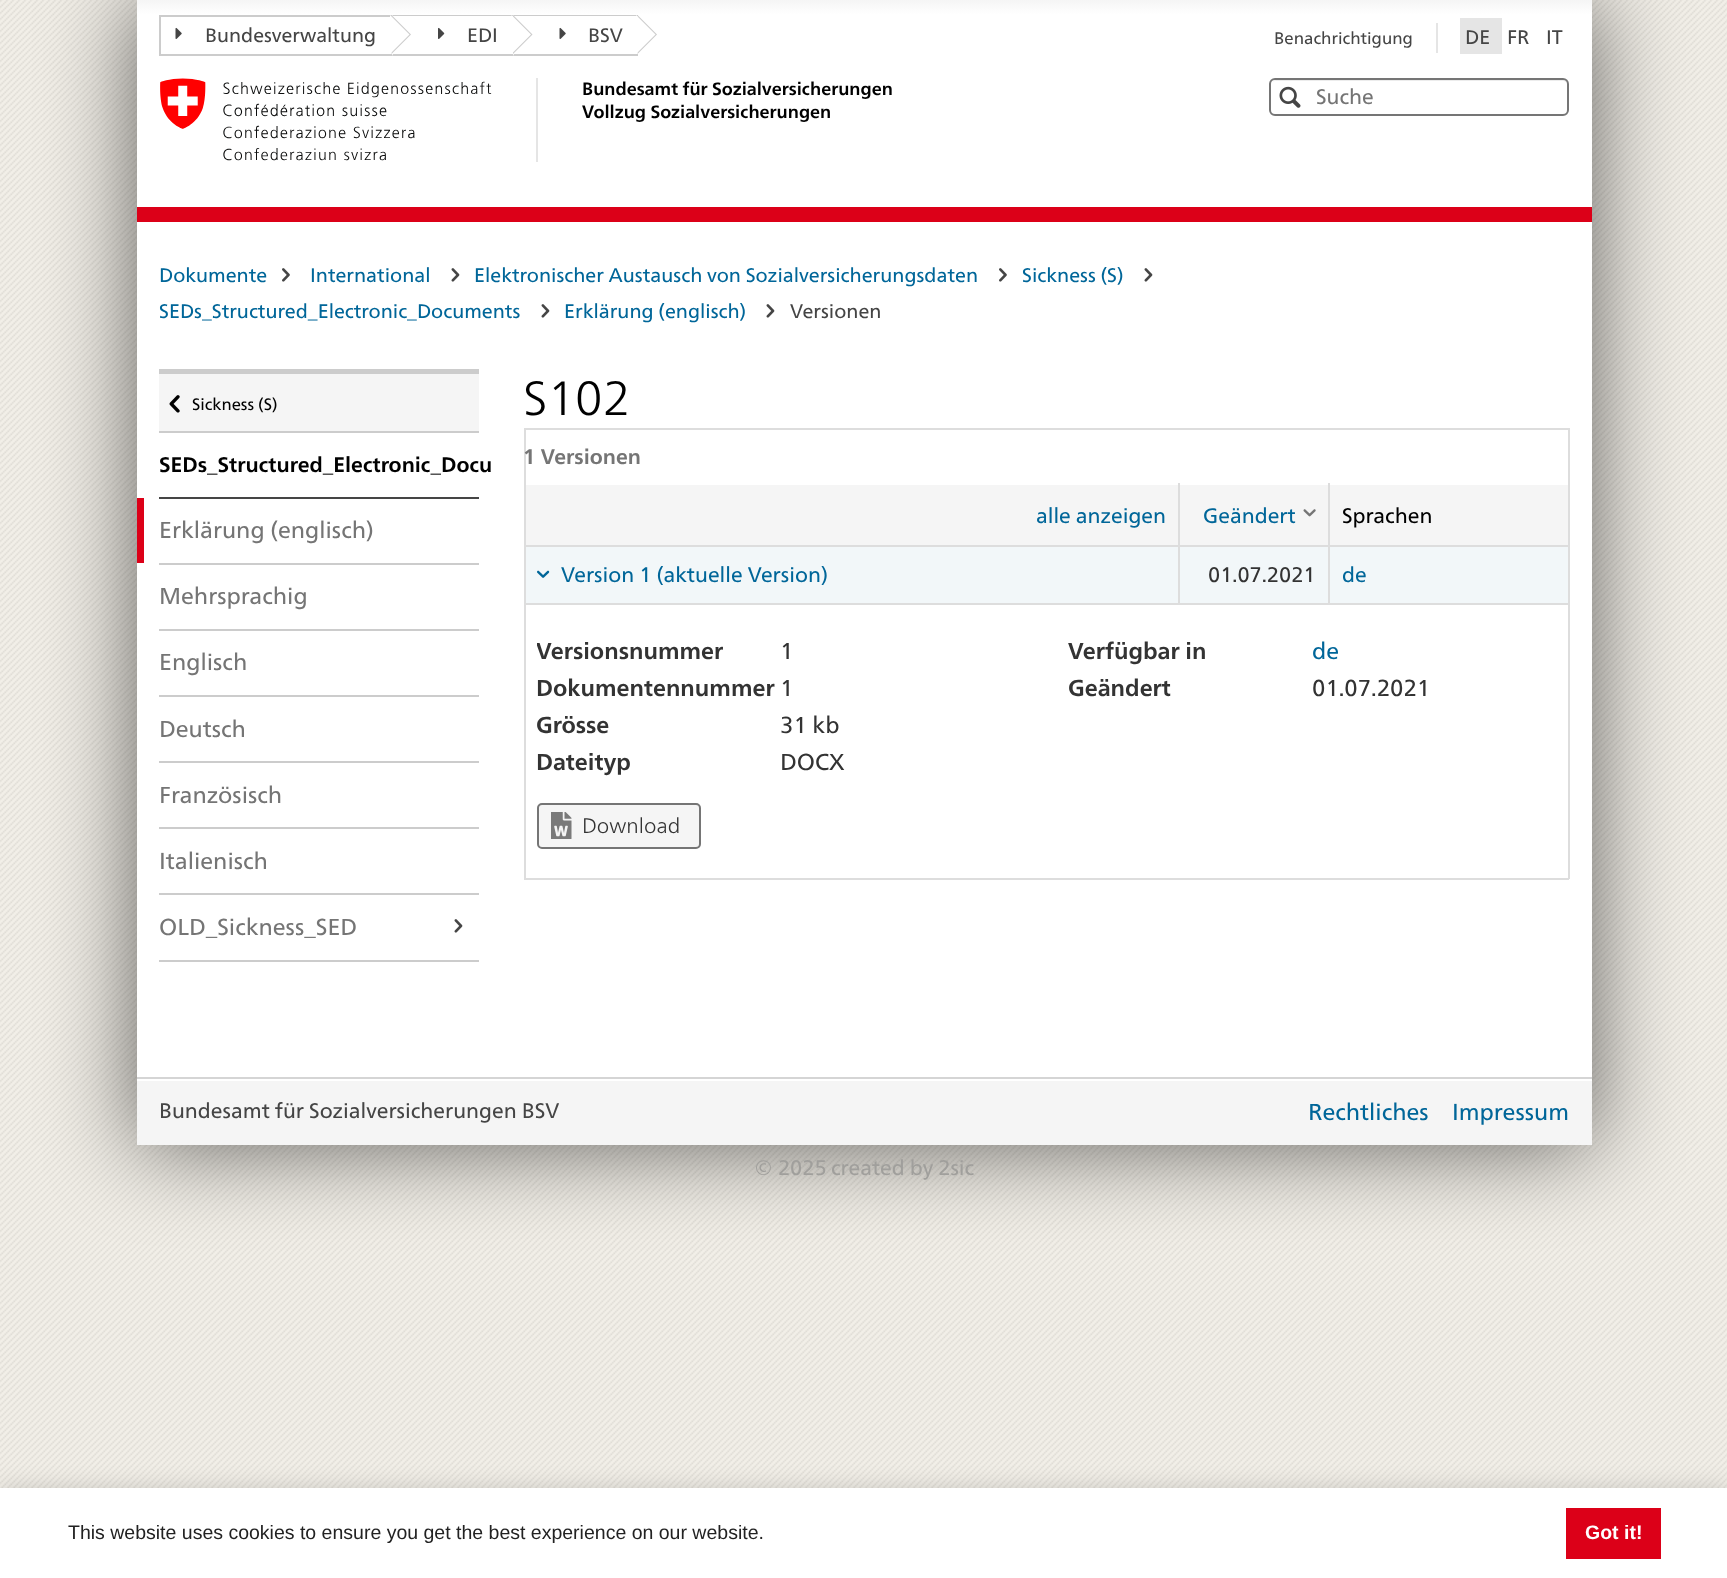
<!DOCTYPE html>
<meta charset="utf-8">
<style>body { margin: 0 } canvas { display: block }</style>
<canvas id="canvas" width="1727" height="1578"></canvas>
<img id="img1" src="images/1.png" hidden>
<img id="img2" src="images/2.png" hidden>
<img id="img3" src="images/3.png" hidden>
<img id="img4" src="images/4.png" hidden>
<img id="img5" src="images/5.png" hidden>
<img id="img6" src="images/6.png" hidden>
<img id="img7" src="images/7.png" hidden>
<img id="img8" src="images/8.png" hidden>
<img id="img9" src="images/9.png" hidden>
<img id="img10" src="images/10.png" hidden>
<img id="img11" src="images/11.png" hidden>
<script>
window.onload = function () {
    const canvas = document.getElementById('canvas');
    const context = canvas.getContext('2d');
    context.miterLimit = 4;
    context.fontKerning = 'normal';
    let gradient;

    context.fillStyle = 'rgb(255, 255, 255)';
    context.fillRect(0, 0, 1727, 1578);
    context.drawImage(document.getElementById('img1'), 0, 0, 1727, 1488);
    context.fillStyle = 'rgba(0, 0, 0, 0.6)';
    context.filter = 'blur(45px)';
    context.beginPath();
    context.rect(137, 0, 1455, 1145);
    context.fill();
    context.filter = 'none';
    context.fillStyle = 'rgb(255, 255, 255)';
    context.fillRect(137, 222, 1455, 855);
    gradient = context.createLinearGradient(864, 0, 864, 207);
    gradient.addColorStop(0, 'rgb(245, 245, 245)');
    gradient.addColorStop(0.07, 'rgb(255, 255, 255)');
    gradient.addColorStop(1, 'rgb(255, 255, 255)');
    context.fillStyle = gradient;
    context.fillRect(137, 0, 1455, 207);
    context.fillStyle = 'rgb(204, 204, 204)';
    context.fillRect(159, 15, 233, 2);
    context.fillRect(159, 54, 233, 2);
    context.fillRect(159, 15, 2, 41);
    context.beginPath();
    context.moveTo(391.5, 54);
    context.lineTo(391.5, 15);
    context.lineTo(411, 34.5);
    context.closePath();
    context.fill();
    context.fillStyle = 'rgb(255, 255, 255)';
    context.beginPath();
    context.moveTo(390, 54);
    context.lineTo(390, 15);
    context.lineTo(409.5, 34.5);
    context.closePath();
    context.fill();
    context.drawImage(document.getElementById('img2'), 175, 27, 7, 12);
    context.fillStyle = 'rgb(204, 204, 204)';
    context.beginPath();
    context.moveTo(392, 15);
    context.lineTo(513, 15);
    context.lineTo(513, 16);
    context.lineTo(393, 16);
    context.closePath();
    context.fill();
    context.beginPath();
    context.moveTo(513, 56);
    context.lineTo(392, 56);
    context.lineTo(393, 54);
    context.lineTo(513, 54);
    context.closePath();
    context.fill();
    context.beginPath();
    context.moveTo(513, 54);
    context.lineTo(513, 15);
    context.lineTo(532.5, 34.5);
    context.closePath();
    context.fill();
    context.fillStyle = 'rgb(255, 255, 255)';
    context.beginPath();
    context.moveTo(511.5, 54);
    context.lineTo(511.5, 15);
    context.lineTo(531, 34.5);
    context.closePath();
    context.fill();
    context.drawImage(document.getElementById('img3'), 438, 27, 7, 12);
    context.fillStyle = 'rgb(204, 204, 204)';
    context.beginPath();
    context.moveTo(513, 15);
    context.lineTo(638, 15);
    context.lineTo(638, 16);
    context.lineTo(514, 16);
    context.closePath();
    context.fill();
    context.beginPath();
    context.moveTo(638, 56);
    context.lineTo(513, 56);
    context.lineTo(514, 54);
    context.lineTo(638, 54);
    context.closePath();
    context.fill();
    context.beginPath();
    context.moveTo(637.5, 54);
    context.lineTo(637.5, 15);
    context.lineTo(657, 34.5);
    context.closePath();
    context.fill();
    context.fillStyle = 'rgb(255, 255, 255)';
    context.beginPath();
    context.moveTo(636, 54);
    context.lineTo(636, 15);
    context.lineTo(655.5, 34.5);
    context.closePath();
    context.fill();
    context.drawImage(document.getElementById('img2'), 559, 27, 7, 12);
    context.fillStyle = 'rgb(229, 229, 229)';
    context.fillRect(1436, 23, 2, 30);
    context.fillRect(1460, 18, 42, 36);
    context.fillRect(536, 78, 2, 84);
    context.drawImage(document.getElementById('img4'), 160, 78, 332, 83);
    context.fillStyle = 'rgb(236, 236, 236)';
    context.beginPath();
    context.moveTo(1275, 81);
    context.lineTo(1564, 81);
    context.lineTo(1567, 83);
    context.lineTo(1568, 86);
    context.bezierCurveTo(1568, 83, 1566, 80, 1563, 80);
    context.lineTo(1276, 80);
    context.lineTo(1274, 81);
    context.lineTo(1272, 82);
    context.closePath();
    context.fill();
    context.beginPath();
    context.roundRect(1270, 79, 298, 36, 5);
    context.strokeStyle = 'rgb(117, 117, 117)';
    context.lineWidth = 2;
    context.stroke();
    context.drawImage(document.getElementById('img5'), 1279, 86, 22, 22);
    context.fillStyle = 'rgb(220, 0, 24)';
    context.fillRect(137, 207, 1455, 15);
    context.drawImage(document.getElementById('img6'), 282, 268, 8, 14);
    context.drawImage(document.getElementById('img7'), 451, 268, 9, 14);
    context.drawImage(document.getElementById('img6'), 999, 268, 8, 14);
    context.drawImage(document.getElementById('img7'), 1144, 268, 9, 14);
    context.drawImage(document.getElementById('img7'), 541, 304, 9, 14);
    context.drawImage(document.getElementById('img7'), 766, 304, 9, 14);
    context.fillStyle = 'rgb(245, 245, 245)';
    context.fillRect(159, 374, 320, 57);
    context.fillStyle = 'rgb(204, 204, 204)';
    context.fillRect(159, 369, 320, 5);
    context.fillRect(159, 431, 320, 2);
    context.drawImage(document.getElementById('img8'), 169, 395, 11, 18);
    context.fillStyle = 'rgb(69, 69, 69)';
    context.fillRect(159, 497, 320, 2);
    context.fillStyle = 'rgb(204, 204, 204)';
    context.fillRect(159, 563, 320, 2);
    context.fillStyle = 'rgb(220, 0, 24)';
    context.fillRect(137, 498, 7, 65);
    context.fillStyle = 'rgb(204, 204, 204)';
    context.fillRect(159, 629, 320, 2);
    context.fillRect(159, 695, 320, 2);
    context.fillRect(159, 761, 320, 2);
    context.fillRect(159, 827, 320, 2);
    context.fillRect(159, 893, 320, 2);
    context.fillRect(159, 960, 320, 2);
    context.drawImage(document.getElementById('img7'), 454, 919, 9, 14);
    context.fillStyle = 'rgb(221, 221, 221)';
    context.fillRect(524, 428, 1045, 2);
    context.fillRect(1568, 428, 2, 451);
    context.fillRect(524, 878, 1045, 2);
    context.fillRect(524, 428, 2, 451);
    context.fillStyle = 'rgb(245, 245, 245)';
    context.fillRect(526, 485, 652, 60);
    context.fillRect(1180, 485, 148, 60);
    context.fillStyle = 'rgb(221, 221, 221)';
    context.fillRect(1328, 545, 241, 2);
    context.fillRect(524, 603, 1045, 2);
    context.fillRect(1328, 545, 2, 60);
    context.fillRect(1178, 545, 151, 2);
    context.fillRect(1178, 545, 2, 60);
    context.fillRect(524, 545, 655, 2);
    context.fillRect(1178, 483, 2, 63);
    context.drawImage(document.getElementById('img9'), 1303, 509, 13, 8);
    context.fillStyle = 'rgb(245, 245, 245)';
    context.fillRect(1330, 485, 238, 60);
    context.fillStyle = 'rgb(221, 221, 221)';
    context.fillRect(1328, 483, 2, 63);
    context.fillStyle = 'rgb(242, 247, 249)';
    context.fillRect(526, 547, 652, 56);
    context.drawImage(document.getElementById('img10'), 537, 570, 13, 8);
    context.fillRect(1180, 547, 148, 56);
    context.fillRect(1330, 547, 238, 56);
    context.fillStyle = 'rgb(245, 245, 245)';
    context.beginPath();
    context.roundRect(538, 804, 162, 44, 4);
    context.fill();
    context.stroke();
    context.drawImage(document.getElementById('img11'), 551, 812, 21, 27);
    context.fillRect(137, 1081, 1455, 64);
    context.fillStyle = 'rgb(213, 213, 213)';
    context.fillRect(137, 1077, 1455, 2);
    context.fillStyle = 'rgb(255, 255, 255)';
    context.fillRect(137, 1079, 1455, 2);
    context.fillStyle = 'rgba(0, 0, 0, 0.15)';
    context.filter = 'blur(11px)';
    context.beginPath();
    context.rect(0, 1488, 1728, 90);
    context.fill();
    context.filter = 'none';
    context.fillStyle = 'rgb(255, 255, 255)';
    context.fillRect(0, 1488, 1727, 90);
    context.fillStyle = 'rgb(220, 0, 24)';
    context.fillRect(1566, 1508, 95, 51);
    context.font = '19.5px "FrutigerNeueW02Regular"';
    context.fillStyle = 'rgb(69, 69, 69)';
    context.fillText('Bundesverwaltung', 205, 42);
    context.fillText('EDI', 467, 42);
    context.fillText('BSV', 588, 42);
    context.font = '16.75px "FrutigerNeueW02Regular"';
    context.fillText('Benachrichtigung', 1274, 44);
    context.font = '19.6px "FrutigerNeueW02Regular"';
    context.fillText('DE', 1465, 44);
    context.fillText('FR', 1507, 44);
    context.fillText('IT', 1546, 44);
    context.font = 'bold 17.8px "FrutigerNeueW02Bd"';
    context.fillStyle = 'rgb(0, 0, 0)';
    context.fillText('Bundesamt für Sozialversicherungen', 582, 95);
    context.fillText('Vollzug Sozialversicherungen', 582, 118);
    context.font = '21px "FrutigerNeueW02Regular"';
    context.fillStyle = 'rgb(117, 117, 117)';
    context.fillText('Suche', 1316, 104);
    context.font = '19.6px "FrutigerNeueW02Regular"';
    context.fillStyle = 'rgb(0, 102, 153)';
    context.fillText('Dokumente', 159, 282);
    context.fillText('International', 310, 282);
    context.fillText('Elektronischer Austausch von Sozialversicherungsdaten', 474, 282);
    context.fillText('Sickness (S)', 1022, 282);
    context.fillText('SEDs_Structured_Electronic_Documents', 159, 318);
    context.fillText('Erklärung (englisch)', 564, 318);
    context.fillStyle = 'rgb(69, 69, 69)';
    context.fillText('Versionen', 790, 318);
    context.font = '16.5px "FrutigerNeueW02Regular"';
    context.fillStyle = 'rgb(0, 0, 0)';
    context.fillText('Sickness (S)', 192, 410);
    context.font = 'bold 21px "FrutigerNeueW02Bd"';
    context.fillText('SEDs_Structured_Electronic_Docu', 159, 472);
    context.font = '23.1px "FrutigerNeueW02Regular"';
    context.fillStyle = 'rgb(117, 117, 117)';
    context.fillText('Erklärung (englisch)', 159, 538);
    context.fillText('Mehrsprachig', 159, 604);
    context.fillText('Englisch', 159, 670);
    context.fillText('Deutsch', 159, 737);
    context.fillText('Französisch', 159, 803);
    context.fillText('Italienisch', 159, 869);
    context.fillText('OLD_Sickness_SED', 159, 935);
    context.font = '300 48px "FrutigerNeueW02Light"';
    context.fillStyle = 'rgb(0, 0, 0)';
    context.fillText('S102', 523, 415);
    context.font = 'bold 21px "FrutigerNeueW02Bd"';
    context.fillStyle = 'rgb(117, 117, 117)';
    context.fillText('1 Versionen', 523, 464);
    context.font = '21px "FrutigerNeueW02Regular"';
    context.fillStyle = 'rgb(0, 102, 153)';
    context.fillText('alle anzeigen', 1036, 523);
    context.fillText('Geändert', 1203, 523);
    context.fillStyle = 'rgb(0, 0, 0)';
    context.fillText('Sprachen', 1342, 523);
    context.fillStyle = 'rgb(0, 102, 153)';
    context.fillText('Version 1 (aktuelle Version)', 561, 582);
    context.fillStyle = 'rgb(51, 51, 51)';
    context.fillText('01.07.2021', 1208, 582);
    context.fillStyle = 'rgb(0, 102, 153)';
    context.fillText('de', 1342, 582);
    context.save();
    context.beginPath();
    context.rect(537, 633, 243, 38);
    context.clip();
    context.font = 'bold 23.1px "FrutigerNeueW02Bd"';
    context.fillStyle = 'rgb(51, 51, 51)';
    context.fillText('Versionsnummer', 536, 659);
    context.restore();
    context.font = '23.1px "FrutigerNeueW02Regular"';
    context.fillStyle = 'rgb(51, 51, 51)';
    context.fillText('1', 780, 659);
    context.font = 'bold 23.1px "FrutigerNeueW02Bd"';
    context.fillText('Dokumentennummer', 536, 696);
    context.font = '23.1px "FrutigerNeueW02Regular"';
    context.fillText('1', 780, 696);
    context.font = 'bold 23.1px "FrutigerNeueW02Bd"';
    context.fillText('Grösse', 536, 733);
    context.font = '23.1px "FrutigerNeueW02Regular"';
    context.fillText('31 kb', 780, 733);
    context.font = 'bold 23.1px "FrutigerNeueW02Bd"';
    context.fillText('Dateityp', 536, 770);
    context.font = '23.1px "FrutigerNeueW02Regular"';
    context.fillText('DOCX', 780, 770);
    context.font = 'bold 23.1px "FrutigerNeueW02Bd"';
    context.fillText('Verfügbar in', 1068, 659);
    context.font = '23.1px "FrutigerNeueW02Regular"';
    context.fillStyle = 'rgb(0, 102, 153)';
    context.fillText('de', 1312, 659);
    context.font = 'bold 23.1px "FrutigerNeueW02Bd"';
    context.fillStyle = 'rgb(51, 51, 51)';
    context.fillText('Geändert', 1068, 696);
    context.font = '23.1px "FrutigerNeueW02Regular"';
    context.fillText('01.07.2021', 1312, 696);
    context.font = '300 21px "FrutigerNeueW02Light"';
    context.fillText('Download', 582, 833);
    context.font = '21px "FrutigerNeueW02Regular"';
    context.fillStyle = 'rgb(69, 69, 69)';
    context.fillText('Bundesamt für Sozialversicherungen BSV', 159, 1118);
    context.font = '23.1px "FrutigerNeueW02Regular"';
    context.fillStyle = 'rgb(0, 102, 153)';
    context.fillText('Rechtliches', 1308, 1120);
    context.fillText('Impressum', 1452, 1120);
    context.font = '21px "FrutigerNeueW02Regular"';
    context.fillStyle = 'rgb(160, 159, 156)';
    context.fillText('© 2025', 754, 1175);
    context.fillText('created by 2sic', 831, 1175);
    context.font = '19.5px Liberation Sans';
    context.fillStyle = 'rgb(34, 34, 34)';
    context.fillText('This website uses cookies to ensure you get the best experience on our website.', 68, 1539);
    context.font = 'bold 19.5px Liberation Sans';
    context.fillStyle = 'rgb(255, 255, 255)';
    context.fillText('Got it!', 1585, 1539);
};
</script>
